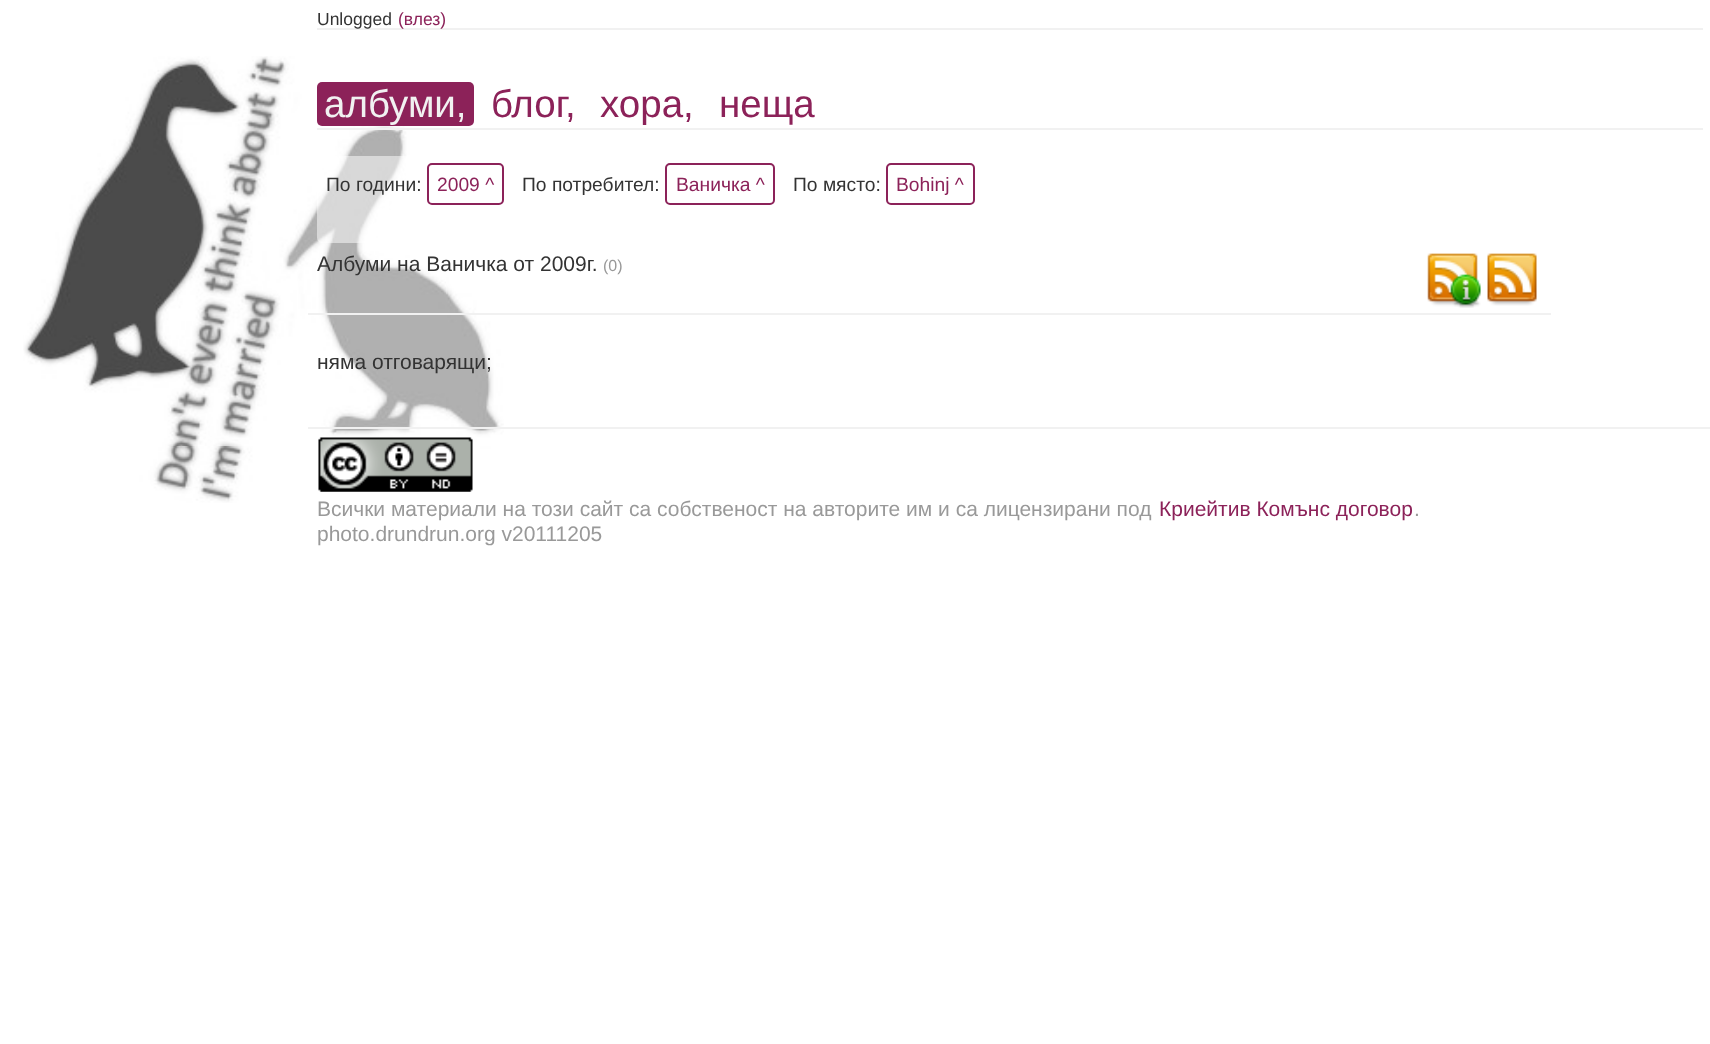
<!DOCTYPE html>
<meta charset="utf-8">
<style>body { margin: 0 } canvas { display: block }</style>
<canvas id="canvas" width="1710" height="1044"></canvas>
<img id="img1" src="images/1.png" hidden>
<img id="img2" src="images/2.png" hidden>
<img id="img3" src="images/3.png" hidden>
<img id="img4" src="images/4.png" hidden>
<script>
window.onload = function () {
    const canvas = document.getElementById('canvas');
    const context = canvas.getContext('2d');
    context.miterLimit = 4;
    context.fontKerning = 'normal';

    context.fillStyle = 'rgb(255, 255, 255)';
    context.fillRect(0, 0, 1710, 1044);
    context.drawImage(document.getElementById('img1'), 23, 56, 481, 447);
    context.fillStyle = 'rgb(241, 241, 241)';
    context.fillRect(317, 28, 1386, 2);
    context.fillRect(317, 128, 1386, 2);
    context.fillStyle = 'rgb(140, 34, 89)';
    context.beginPath();
    context.roundRect(317, 82, 157, 44, 5);
    context.fill();
    context.fillStyle = 'rgba(255, 255, 255, 0.5)';
    context.beginPath();
    context.roundRect(317, 156, 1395, 87, 5);
    context.fill();
    context.beginPath();
    context.roundRect(428, 164, 75, 40, 4);
    context.strokeStyle = 'rgb(140, 34, 89)';
    context.lineWidth = 2;
    context.stroke();
    context.beginPath();
    context.roundRect(666, 164, 108, 40, 4);
    context.stroke();
    context.beginPath();
    context.roundRect(887, 164, 87, 40, 4);
    context.stroke();
    context.fillStyle = 'rgb(241, 241, 241)';
    context.fillRect(308, 313, 1243, 2);
    context.drawImage(document.getElementById('img2'), 1427, 253, 54, 55);
    context.drawImage(document.getElementById('img3'), 1487, 253, 50, 53);
    context.fillRect(308, 427, 1402, 2);
    context.drawImage(document.getElementById('img4'), 318, 437, 155, 55);
    context.font = '17.5px Liberation Sans';
    context.fillStyle = 'rgb(51, 51, 51)';
    context.fillText('Unlogged', 317, 25);
    context.fillStyle = 'rgb(140, 34, 89)';
    context.fillText('(влез)', 398, 25);
    context.font = '38.5px Liberation Sans';
    context.fillStyle = 'rgb(241, 241, 241)';
    context.fillText('албуми,', 324, 117);
    context.fillStyle = 'rgb(140, 34, 89)';
    context.fillText('блог,', 491, 117);
    context.fillText('хора,', 600, 117);
    context.fillText('неща', 719, 117);
    context.font = '19.25px Liberation Sans';
    context.fillStyle = 'rgb(51, 51, 51)';
    context.fillText('По години:', 326, 191);
    context.fillStyle = 'rgb(140, 34, 89)';
    context.fillText('2009 ^', 437, 191);
    context.fillStyle = 'rgb(51, 51, 51)';
    context.fillText('По потребител:', 522, 191);
    context.fillStyle = 'rgb(140, 34, 89)';
    context.fillText('Ваничка ^', 676, 191);
    context.fillStyle = 'rgb(51, 51, 51)';
    context.fillText('По място:', 793, 191);
    context.fillStyle = 'rgb(140, 34, 89)';
    context.fillText('Bohinj ^', 896, 191);
    context.font = '21px Liberation Sans';
    context.fillStyle = 'rgb(51, 51, 51)';
    context.fillText('Албуми на Ваничка от 2009г.', 317, 271);
    context.font = '16px Liberation Sans';
    context.fillStyle = 'rgb(153, 153, 153)';
    context.fillText('(0)', 603, 271);
    context.font = '21px Liberation Sans';
    context.fillStyle = 'rgb(51, 51, 51)';
    context.fillText('няма отговарящи;', 317, 369);
    context.fillStyle = 'rgb(153, 153, 153)';
    context.fillText('Всички материали на този сайт са собственост на авторите им и са лицензирани под', 317, 516);
    context.fillStyle = 'rgb(140, 34, 89)';
    context.fillText('Криейтив Комънс договор', 1159, 516);
    context.fillStyle = 'rgb(153, 153, 153)';
    context.fillText('.', 1414, 516);
    context.fillText('photo.drundrun.org v20111205', 317, 541);
};
</script>
